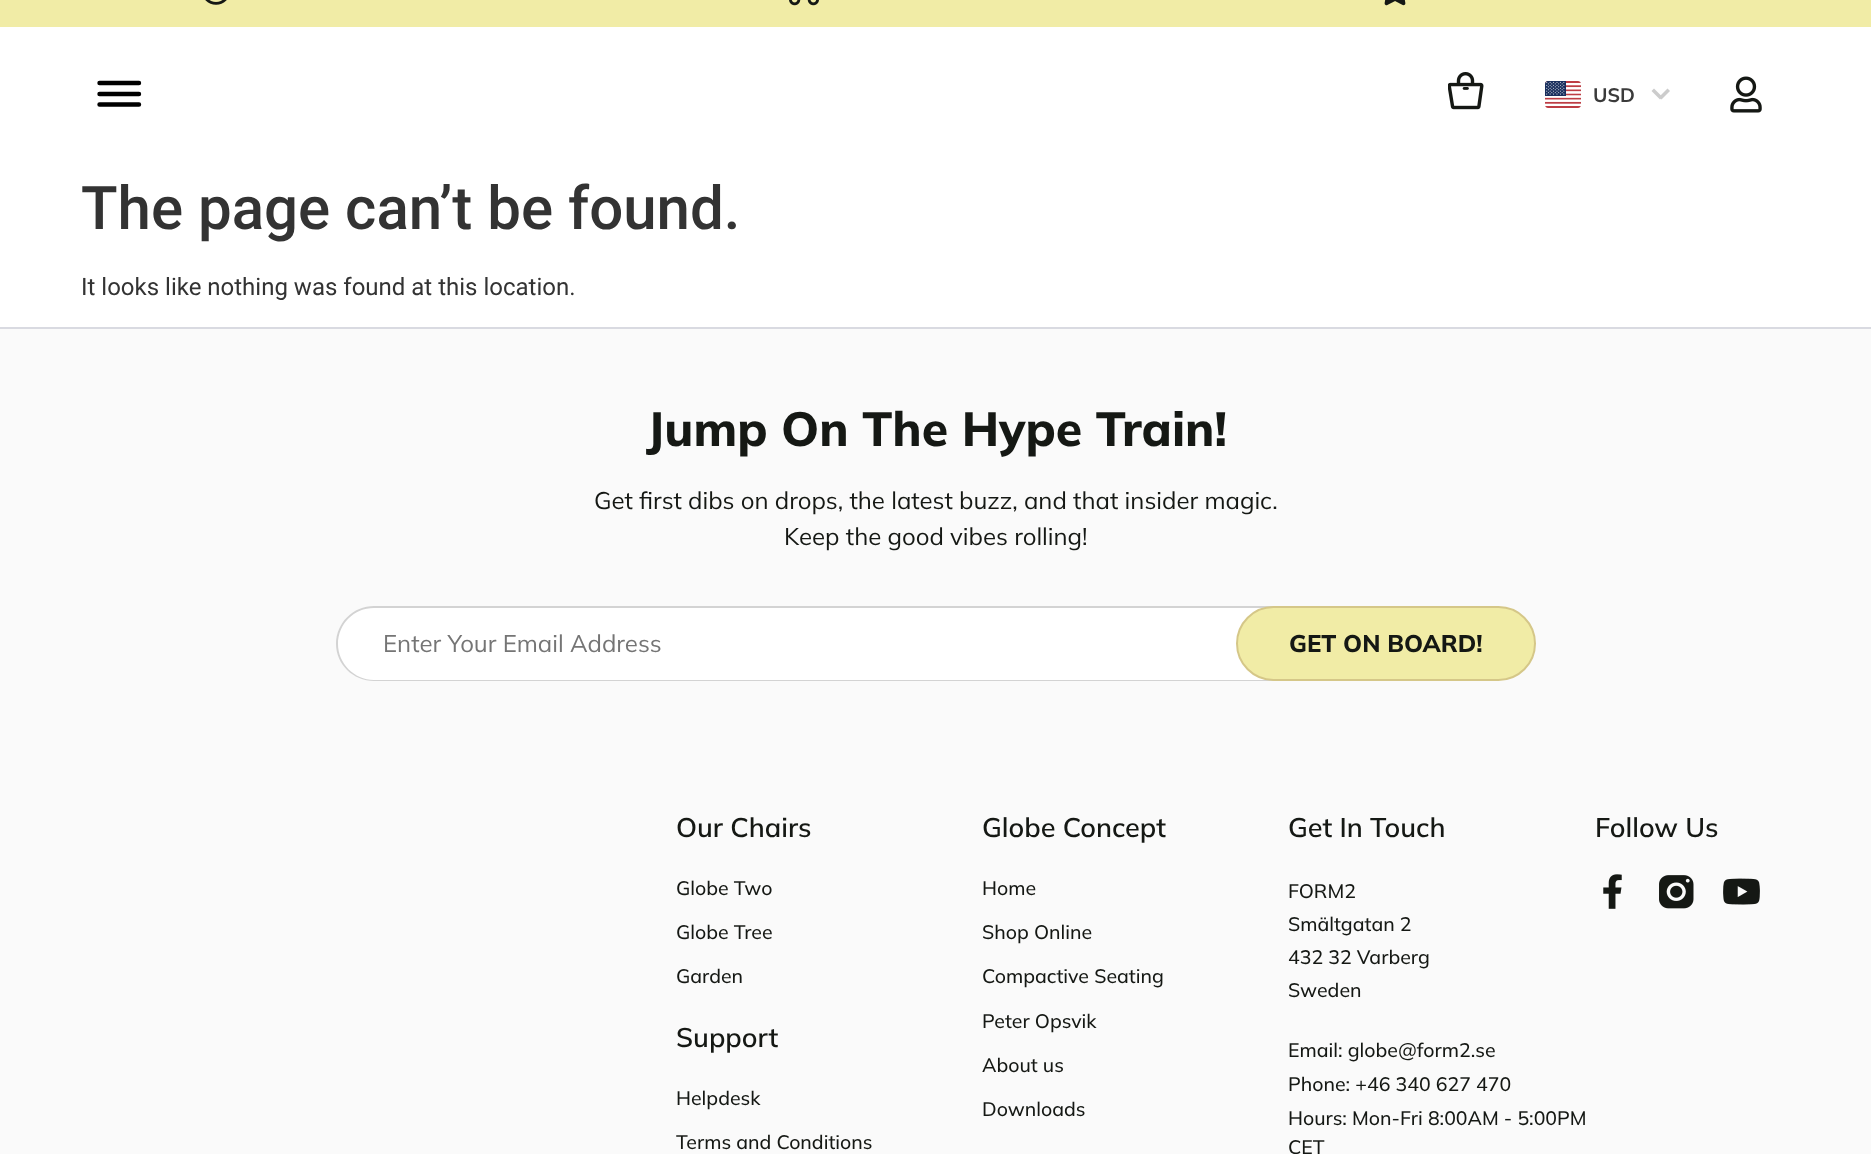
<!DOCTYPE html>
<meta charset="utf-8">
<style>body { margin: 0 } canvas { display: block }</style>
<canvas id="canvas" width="1871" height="1154"></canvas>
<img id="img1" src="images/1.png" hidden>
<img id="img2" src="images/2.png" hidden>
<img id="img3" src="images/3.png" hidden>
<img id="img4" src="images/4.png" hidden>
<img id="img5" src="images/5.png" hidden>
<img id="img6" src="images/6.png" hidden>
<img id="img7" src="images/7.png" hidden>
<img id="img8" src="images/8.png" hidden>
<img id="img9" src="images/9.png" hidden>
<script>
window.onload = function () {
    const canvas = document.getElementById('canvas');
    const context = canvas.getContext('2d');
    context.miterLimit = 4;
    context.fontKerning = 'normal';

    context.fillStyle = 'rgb(255, 255, 255)';
    context.fillRect(0, 0, 1871, 1154);
    context.fillStyle = 'rgb(241, 236, 166)';
    context.fillRect(0, 0, 1871, 27);
    context.drawImage(document.getElementById('img1'), 205, 0, 22, 5);
    context.drawImage(document.getElementById('img2'), 789, 0, 30, 6);
    context.drawImage(document.getElementById('img3'), 1384, 0, 22, 6);
    context.beginPath();
    context.moveTo(99.5, 104.5);
    context.lineTo(139, 104.5);
    context.moveTo(99.5, 94);
    context.lineTo(139, 94);
    context.moveTo(99.5, 83);
    context.lineTo(139, 83);
    context.strokeStyle = 'rgb(0, 0, 0)';
    context.lineWidth = 4.4;
    context.lineCap = 'round';
    context.lineJoin = 'round';
    context.stroke();
    context.drawImage(document.getElementById('img4'), 1448, 72, 36, 38);
    context.drawImage(document.getElementById('img5'), 1545, 81, 36, 27);
    context.fillStyle = 'rgb(204, 204, 204)';
    context.beginPath();
    context.moveTo(1651.5, 91);
    context.lineTo(1654, 88.5);
    context.lineTo(1662.5, 97);
    context.lineTo(1660, 99.5);
    context.closePath();
    context.fill();
    context.beginPath();
    context.moveTo(1667.5, 88.5);
    context.lineTo(1670, 91);
    context.lineTo(1661.5, 99.5);
    context.lineTo(1659, 97);
    context.closePath();
    context.fill();
    context.drawImage(document.getElementById('img6'), 1730, 76, 32, 37);
    context.fillStyle = 'rgb(250, 250, 250)';
    context.fillRect(0, 329, 1871, 825);
    context.fillStyle = 'rgb(217, 218, 225)';
    context.fillRect(0, 327, 1871, 2);
    context.fillStyle = 'rgb(255, 255, 255)';
    context.beginPath();
    context.roundRect(336, 606, 953, 75, [37.5, 4, 4, 37.5]);
    context.fill();
    context.fillStyle = 'rgb(211, 211, 211)';
    context.beginPath();
    context.moveTo(374, 606);
    context.lineTo(1285, 606);
    context.bezierCurveTo(1287, 606, 1288, 608, 1288, 610);
    context.lineTo(1288, 677);
    context.bezierCurveTo(1288, 679, 1287, 681, 1285, 681);
    context.lineTo(374, 681);
    context.bezierCurveTo(353, 681, 336, 664, 336, 644);
    context.bezierCurveTo(336, 623, 353, 606, 374, 606);
    context.closePath();
    context.moveTo(374, 608);
    context.lineTo(1285, 608);
    context.bezierCurveTo(1287, 608, 1288, 609, 1288, 610);
    context.lineTo(1288, 677);
    context.bezierCurveTo(1288, 678, 1287, 680, 1285, 680);
    context.lineTo(374, 680);
    context.bezierCurveTo(354, 680, 338, 663, 338, 644);
    context.bezierCurveTo(338, 624, 354, 608, 374, 608);
    context.closePath();
    context.fill('evenodd');
    context.fillStyle = 'rgb(241, 236, 166)';
    context.beginPath();
    context.roundRect(1237, 607, 298, 73, 36.5);
    context.fill();
    context.strokeStyle = 'rgb(213, 199, 136)';
    context.lineWidth = 2;
    context.lineJoin = 'miter';
    context.stroke();
    context.drawImage(document.getElementById('img7'), 1603, 874, 19, 35);
    context.drawImage(document.getElementById('img8'), 1659, 875, 35, 34);
    context.drawImage(document.getElementById('img9'), 1723, 878, 37, 27);
    context.font = 'bold 19.5px Mulish';
    context.fillStyle = 'rgb(59, 59, 59)';
    context.fillText('USD', 1593, 102);
    context.font = '500 60px Roboto';
    context.fillStyle = 'rgb(51, 51, 51)';
    context.fillText('The page can’t be found.', 81, 229);
    context.font = '24px Roboto';
    context.fillText('It looks like nothing was found at this location.', 81, 295);
    context.font = '800 48px Mulish';
    context.fillStyle = 'rgb(21, 24, 20)';
    context.fillText('Jump On The Hype Train!', 646, 446);
    context.font = '24px Mulish';
    context.fillText('Get first dibs on drops, the latest buzz, and that insider magic.', 594, 509);
    context.fillText('Keep the good vibes rolling!', 784, 545);
    context.fillStyle = 'rgb(117, 117, 117)';
    context.fillText('Enter Your Email Address', 383, 652);
    context.font = '800 24px Mulish';
    context.fillStyle = 'rgb(21, 24, 20)';
    context.fillText('GET ON BOARD!', 1289, 652);
    context.font = '600 27px Mulish';
    context.fillText('Our Chairs', 676, 837);
    context.font = '500 19.5px Mulish';
    context.fillText('Globe Two', 676, 895);
    context.fillText('Globe Tree', 676, 939);
    context.fillText('Garden', 676, 983);
    context.font = '600 27px Mulish';
    context.fillText('Support', 676, 1047);
    context.font = '500 19.5px Mulish';
    context.fillText('Helpdesk', 676, 1105);
    context.fillText('Terms and Conditions', 676, 1149);
    context.font = '600 27px Mulish';
    context.fillText('Globe Concept', 982, 837);
    context.font = '500 19.5px Mulish';
    context.fillText('Home', 982, 895);
    context.fillText('Shop Online', 982, 939);
    context.fillText('Compactive Seating', 982, 983);
    context.fillText('Peter Opsvik', 982, 1028);
    context.fillText('About us', 982, 1072);
    context.fillText('Downloads', 982, 1116);
    context.font = '600 27px Mulish';
    context.fillText('Get In Touch', 1288, 837);
    context.font = '500 19.5px Mulish';
    context.fillText('FORM2', 1288, 898);
    context.fillText('Smältgatan 2', 1288, 931);
    context.fillText('432 32 Varberg', 1288, 964);
    context.fillText('Sweden', 1288, 997);
    context.fillText('Email: globe@form2.se', 1288, 1057);
    context.fillText('Phone: +46 340 627 470', 1288, 1091);
    context.fillText('Hours: Mon-Fri 8:00AM - 5:00PM', 1288, 1125);
    context.fillText('CET', 1288, 1154);
    context.font = '600 27px Mulish';
    context.fillText('Follow Us', 1595, 837);
};
</script>
